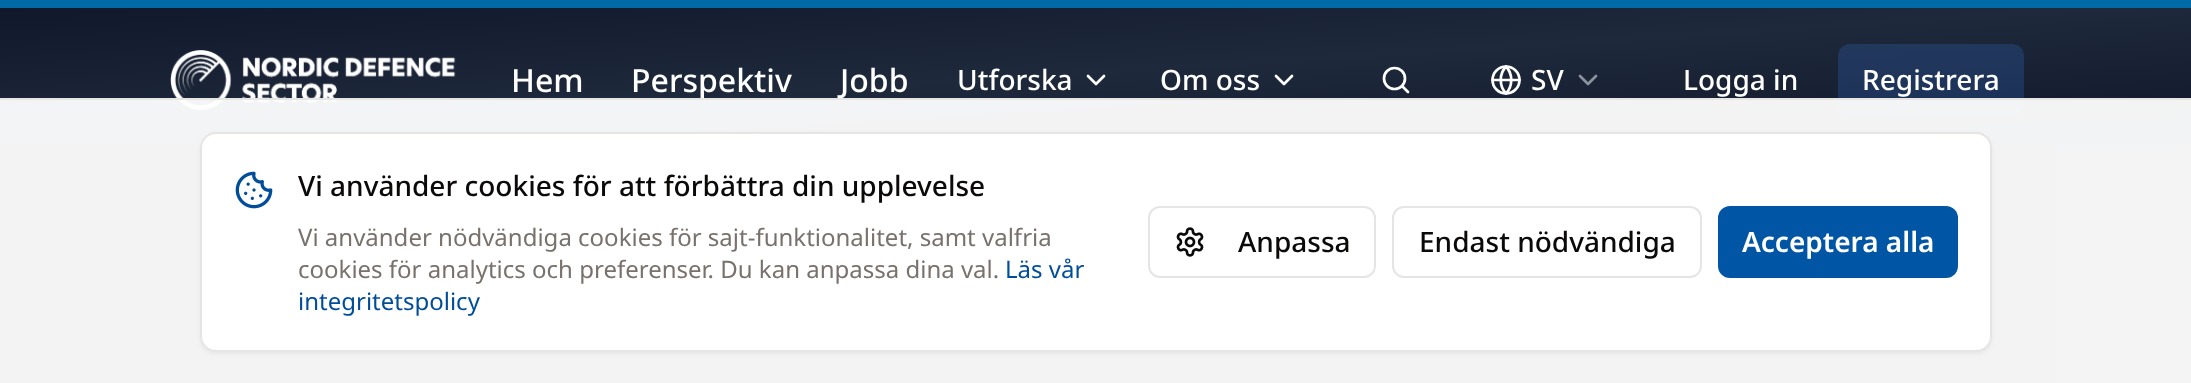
<!DOCTYPE html>
<meta charset="utf-8">
<style>body { margin: 0 } canvas { display: block }</style>
<canvas id="canvas" width="2191" height="383"></canvas>
<img id="img1" src="images/1.png" hidden>
<img id="img2" src="images/2.png" hidden>
<img id="img3" src="images/3.png" hidden>
<script>
window.onload = function () {
    const canvas = document.getElementById('canvas');
    const context = canvas.getContext('2d');
    context.miterLimit = 4;
    context.fontKerning = 'normal';
    let gradient;

    context.fillStyle = 'rgb(255, 255, 255)';
    context.fillRect(0, 0, 2191, 383);
    gradient = context.createLinearGradient(-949, 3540, 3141, 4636);
    gradient.addColorStop(0, 'rgb(24, 33, 47)');
    gradient.addColorStop(0.5, 'rgb(41, 52, 68)');
    gradient.addColorStop(1, 'rgb(24, 33, 47)');
    context.fillStyle = gradient;
    context.fillRect(0, 144, 2191, 239);
    context.fillStyle = 'rgb(24, 33, 47)';
    context.fillRect(158, 144, 1898, 239);
    context.fillStyle = 'rgba(0, 0, 0, 0.1)';
    context.filter = 'blur(6px)';
    context.beginPath();
    context.rect(8, 16, 2176, 128);
    context.fill();
    context.filter = 'none';
    context.filter = 'blur(15px)';
    context.beginPath();
    context.rect(6, 26, 2180, 132);
    context.fill();
    context.filter = 'none';
    gradient = context.createLinearGradient(1087, -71, 1105, 215);
    gradient.addColorStop(0, 'rgb(15, 23, 42)');
    gradient.addColorStop(0.5, 'rgb(30, 41, 59)');
    gradient.addColorStop(1, 'rgb(15, 23, 42)');
    context.fillStyle = gradient;
    context.fillRect(0, 8, 2191, 136);
    context.fillStyle = 'rgb(0, 106, 167)';
    context.fillRect(0, 0, 2191, 8);
    context.drawImage(document.getElementById('img1'), 170, 50, 286, 61);
    context.beginPath();
    context.moveTo(1088, 76);
    context.lineTo(1096, 84);
    context.lineTo(1104, 76);
    context.strokeStyle = 'rgb(255, 255, 255)';
    context.lineWidth = 2.7;
    context.lineCap = 'round';
    context.lineJoin = 'round';
    context.stroke();
    context.beginPath();
    context.moveTo(1276, 76);
    context.lineTo(1284, 84);
    context.lineTo(1292, 76);
    context.stroke();
    context.beginPath();
    context.arc(1394.5, 78.5, 10.5, 0, 2 * Math.PI);
    context.stroke();
    context.beginPath();
    context.moveTo(1408, 92);
    context.lineTo(1402.5, 86.5);
    context.stroke();
    context.beginPath();
    context.arc(1506, 80, 13.5, 0, 2 * Math.PI);
    context.stroke();
    context.beginPath();
    context.moveTo(1506, 66.5);
    context.bezierCurveTo(1499, 74, 1499, 86, 1506, 93.5);
    context.bezierCurveTo(1513, 86, 1513, 74, 1506, 66.5);
    context.moveTo(1492.5, 80);
    context.lineTo(1519.5, 80);
    context.stroke();
    context.beginPath();
    context.moveTo(1580, 76);
    context.lineTo(1588, 84);
    context.lineTo(1596, 76);
    context.strokeStyle = 'rgb(140, 146, 155)';
    context.stroke();
    context.fillStyle = 'rgba(59, 130, 246, 0.2)';
    context.beginPath();
    context.roundRect(1838, 44, 186, 72, 12);
    context.fill();
    context.fillStyle = 'rgba(255, 255, 255, 0.95)';
    context.fillRect(0, 100, 2191, 283);
    context.fillStyle = 'rgba(0, 0, 0, 0.05)';
    context.filter = 'blur(2px)';
    context.beginPath();
    context.roundRect(200, 134, 1792, 220, 16);
    context.fill();
    context.filter = 'none';
    context.fillStyle = 'rgb(255, 255, 255)';
    context.beginPath();
    context.roundRect(201, 133, 1790, 218, 15);
    context.fill();
    context.strokeStyle = 'rgb(231, 229, 228)';
    context.lineWidth = 2;
    context.lineJoin = 'miter';
    context.stroke();
    context.drawImage(document.getElementById('img2'), 235, 171, 38, 38);
    context.beginPath();
    context.roundRect(1149, 207, 226, 70, 11);
    context.stroke();
    context.drawImage(document.getElementById('img3'), 1176, 227, 28, 30);
    context.beginPath();
    context.roundRect(1393, 207, 308, 70, 11);
    context.stroke();
    context.fillStyle = 'rgb(0, 85, 164)';
    context.beginPath();
    context.roundRect(1718, 206, 240, 72, 12);
    context.fill();
    context.font = '500 32px Noto Sans';
    context.fillStyle = 'rgb(255, 255, 255)';
    context.fillText('Hem', 511, 92);
    context.fillText('Perspektiv', 631, 92);
    context.fillText('Jobb', 840, 92);
    context.font = '500 28px Noto Sans';
    context.fillText('Utforska', 957, 90);
    context.fillText('Om oss', 1160, 90);
    context.fillText('SV', 1531, 90);
    context.fillText('Logga in', 1683, 90);
    context.fillText('Registrera', 1862, 90);
    context.fillStyle = 'rgb(231, 229, 228)';
    context.fillRect(0, 98, 2191, 2);
    context.fillStyle = 'rgb(12, 10, 9)';
    context.fillText('Vi använder cookies för att förbättra din upplevelse', 298, 196);
    context.font = '24px Noto Sans';
    context.fillStyle = 'rgb(120, 113, 108)';
    context.fillText('Vi använder nödvändiga cookies för sajt-funktionalitet, samt valfria', 298, 246);
    context.fillText('cookies för analytics och preferenser. Du kan anpassa dina val.', 298, 278);
    context.fillStyle = 'rgb(0, 77, 153)';
    context.fillText('Läs vår', 1005, 278);
    context.fillText('integritetspolicy', 298, 310);
    context.font = '500 28px Noto Sans';
    context.fillStyle = 'rgb(12, 10, 9)';
    context.fillText('Anpassa', 1238, 252);
    context.fillText('Endast nödvändiga', 1419, 252);
    context.font = '600 28px Noto Sans';
    context.fillStyle = 'rgb(255, 255, 255)';
    context.fillText('Acceptera alla', 1742, 252);
};
</script>
